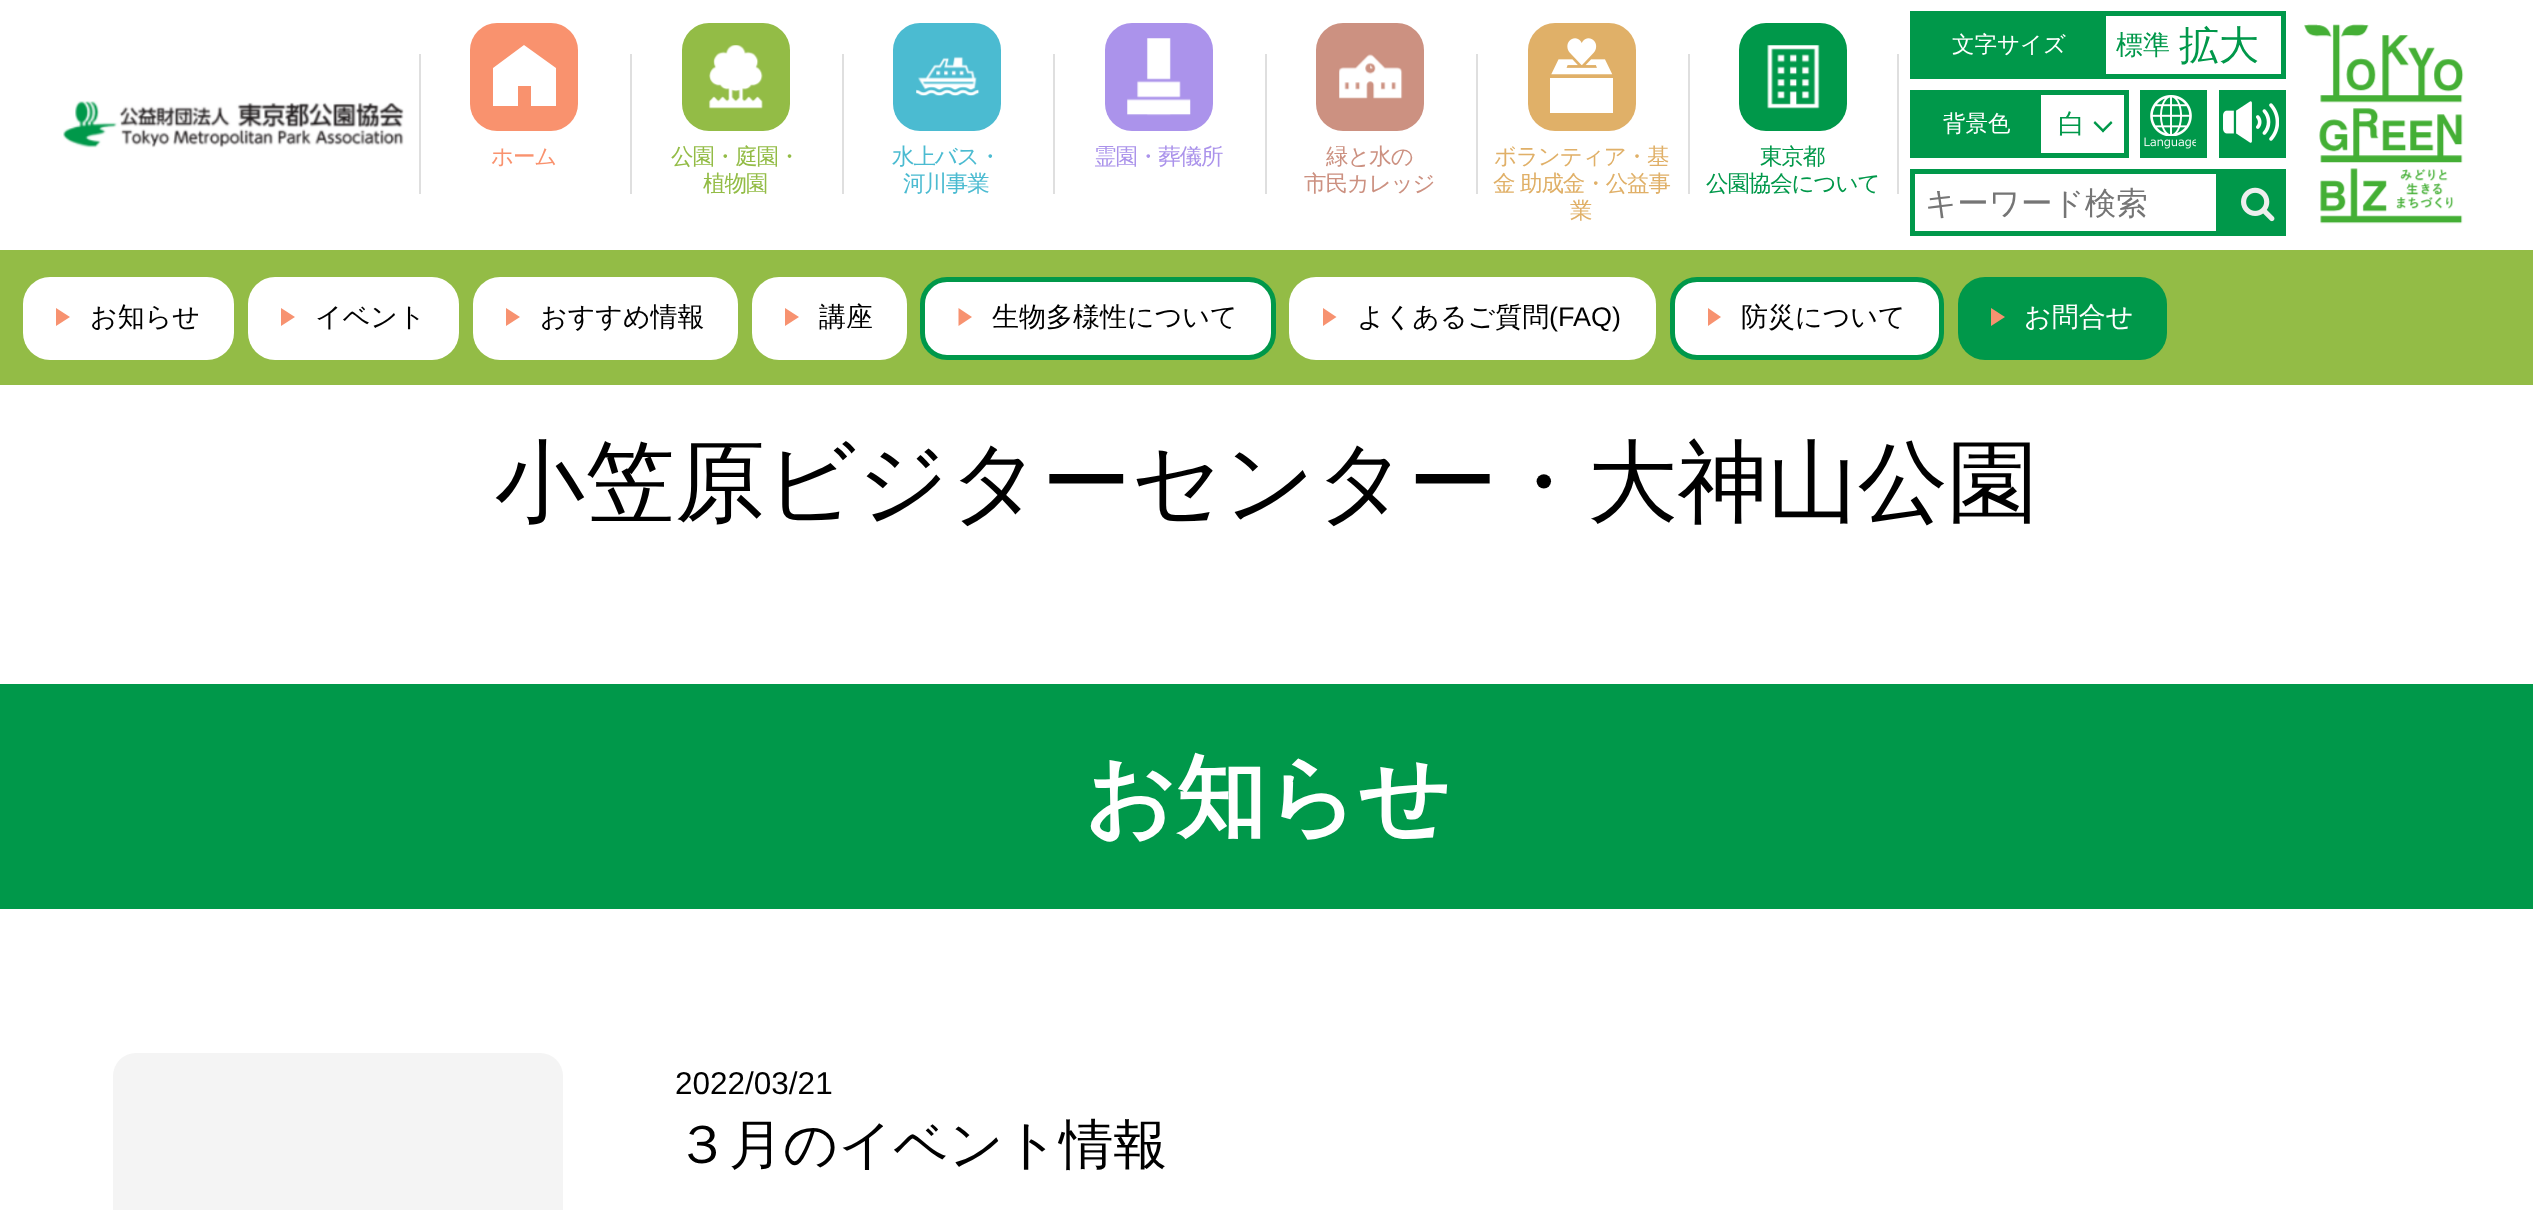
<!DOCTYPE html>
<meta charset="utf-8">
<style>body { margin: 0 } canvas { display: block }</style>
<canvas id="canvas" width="2533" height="1210"></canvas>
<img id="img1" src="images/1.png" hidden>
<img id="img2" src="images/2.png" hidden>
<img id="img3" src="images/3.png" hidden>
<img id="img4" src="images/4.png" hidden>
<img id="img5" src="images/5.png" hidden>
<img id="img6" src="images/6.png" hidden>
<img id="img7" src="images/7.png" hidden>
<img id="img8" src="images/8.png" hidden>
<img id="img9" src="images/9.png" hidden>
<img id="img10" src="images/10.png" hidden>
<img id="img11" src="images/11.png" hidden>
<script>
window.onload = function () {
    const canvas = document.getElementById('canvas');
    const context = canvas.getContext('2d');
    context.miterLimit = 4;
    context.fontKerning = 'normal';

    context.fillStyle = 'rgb(255, 255, 255)';
    context.fillRect(0, 0, 2533, 1210);
    context.drawImage(document.getElementById('img1'), 63, 101, 341, 47);
    context.strokeStyle = 'rgb(0, 152, 74)';
    context.lineWidth = 5;
    context.strokeRect(1912.5, 13.5, 371, 63);
    context.fillStyle = 'rgb(0, 152, 74)';
    context.fillRect(1915, 16, 191, 58);
    context.strokeRect(1912.5, 92.5, 214, 63);
    context.fillRect(1915, 95, 126, 58);
    context.beginPath();
    context.moveTo(2111, 121);
    context.lineTo(2112.5, 123);
    context.lineTo(2103, 132.5);
    context.lineTo(2101.5, 130.5);
    context.closePath();
    context.fill();
    context.beginPath();
    context.moveTo(2095, 121);
    context.lineTo(2104.5, 130.5);
    context.lineTo(2103, 132.5);
    context.lineTo(2093.5, 123);
    context.closePath();
    context.fill();
    context.fillRect(2140, 90, 67, 68);
    context.drawImage(document.getElementById('img2'), 2144, 95, 52, 54);
    context.fillRect(2219, 90, 67, 68);
    context.drawImage(document.getElementById('img3'), 2223, 101, 56, 42);
    context.strokeRect(1912.5, 171.5, 371, 62);
    context.fillRect(2216, 174, 65, 57);
    context.drawImage(document.getElementById('img4'), 2241, 187, 34, 35);
    context.drawImage(document.getElementById('img5'), 2304, 24, 160, 200);
    context.fillStyle = 'rgb(223, 223, 223)';
    context.fillRect(419, 54, 2, 140);
    context.fillStyle = 'rgb(249, 146, 110)';
    context.beginPath();
    context.roundRect(470, 23, 108, 108, 27);
    context.fill();
    context.fillStyle = 'rgb(255, 255, 255)';
    context.beginPath();
    context.moveTo(524, 45);
    context.lineTo(493, 68);
    context.lineTo(493, 106);
    context.lineTo(518, 106);
    context.lineTo(518, 86);
    context.lineTo(531, 86);
    context.lineTo(531, 106);
    context.lineTo(556, 106);
    context.lineTo(556, 68);
    context.closePath();
    context.fill();
    context.fillStyle = 'rgb(223, 223, 223)';
    context.fillRect(630, 54, 2, 140);
    context.fillStyle = 'rgb(147, 188, 70)';
    context.beginPath();
    context.roundRect(682, 23, 108, 108, 27);
    context.fill();
    context.drawImage(document.getElementById('img6'), 708, 45, 55, 64);
    context.fillStyle = 'rgb(223, 223, 223)';
    context.fillRect(842, 54, 2, 140);
    context.fillStyle = 'rgb(75, 187, 209)';
    context.beginPath();
    context.roundRect(893, 23, 108, 108, 27);
    context.fill();
    context.drawImage(document.getElementById('img7'), 916, 56, 64, 40);
    context.fillStyle = 'rgb(223, 223, 223)';
    context.fillRect(1053, 54, 2, 140);
    context.fillStyle = 'rgb(171, 147, 235)';
    context.beginPath();
    context.roundRect(1105, 23, 108, 108, 27);
    context.fill();
    context.drawImage(document.getElementById('img8'), 1127, 38, 64, 78);
    context.fillStyle = 'rgb(223, 223, 223)';
    context.fillRect(1265, 54, 2, 140);
    context.fillStyle = 'rgb(204, 145, 129)';
    context.beginPath();
    context.roundRect(1316, 23, 108, 108, 27);
    context.fill();
    context.drawImage(document.getElementById('img9'), 1339, 54, 64, 45);
    context.fillStyle = 'rgb(223, 223, 223)';
    context.fillRect(1476, 54, 2, 140);
    context.fillStyle = 'rgb(224, 176, 104)';
    context.beginPath();
    context.roundRect(1528, 23, 108, 108, 27);
    context.fill();
    context.drawImage(document.getElementById('img10'), 1550, 38, 63, 75);
    context.fillStyle = 'rgb(223, 223, 223)';
    context.fillRect(1688, 54, 2, 140);
    context.fillStyle = 'rgb(0, 152, 74)';
    context.beginPath();
    context.roundRect(1739, 23, 108, 108, 27);
    context.fill();
    context.drawImage(document.getElementById('img11'), 1767, 45, 53, 64);
    context.fillStyle = 'rgb(223, 223, 223)';
    context.fillRect(1897, 54, 2, 140);
    context.fillStyle = 'rgb(147, 188, 70)';
    context.fillRect(0, 250, 2533, 135);
    context.fillStyle = 'rgb(255, 255, 255)';
    context.beginPath();
    context.roundRect(23, 277, 211, 83, 27);
    context.fill();
    context.fillStyle = 'rgb(247, 146, 112)';
    context.beginPath();
    context.moveTo(56, 326);
    context.lineTo(56, 308);
    context.lineTo(70, 317);
    context.closePath();
    context.fill();
    context.fillStyle = 'rgb(255, 255, 255)';
    context.beginPath();
    context.roundRect(248, 277, 211, 83, 27);
    context.fill();
    context.fillStyle = 'rgb(247, 146, 112)';
    context.beginPath();
    context.moveTo(281, 326);
    context.lineTo(281, 308);
    context.lineTo(295, 317);
    context.closePath();
    context.fill();
    context.fillStyle = 'rgb(255, 255, 255)';
    context.beginPath();
    context.roundRect(473, 277, 265, 83, 27);
    context.fill();
    context.fillStyle = 'rgb(247, 146, 112)';
    context.beginPath();
    context.moveTo(506, 326);
    context.lineTo(506, 308);
    context.lineTo(520, 317);
    context.closePath();
    context.fill();
    context.fillStyle = 'rgb(255, 255, 255)';
    context.beginPath();
    context.roundRect(752, 277, 155, 83, 27);
    context.fill();
    context.fillStyle = 'rgb(247, 146, 112)';
    context.beginPath();
    context.moveTo(785, 326);
    context.lineTo(785, 308);
    context.lineTo(799, 317);
    context.closePath();
    context.fill();
    context.fillStyle = 'rgb(255, 255, 255)';
    context.beginPath();
    context.roundRect(922.5, 279.5, 351, 78, 24.5);
    context.fill();
    context.stroke();
    context.fillStyle = 'rgb(247, 146, 112)';
    context.beginPath();
    context.moveTo(958.5, 326);
    context.lineTo(958.5, 308);
    context.lineTo(972, 317);
    context.closePath();
    context.fill();
    context.fillStyle = 'rgb(255, 255, 255)';
    context.beginPath();
    context.roundRect(1289, 277, 367, 83, 27);
    context.fill();
    context.fillStyle = 'rgb(247, 146, 112)';
    context.beginPath();
    context.moveTo(1323, 326);
    context.lineTo(1323, 308);
    context.lineTo(1336.5, 317);
    context.closePath();
    context.fill();
    context.fillStyle = 'rgb(255, 255, 255)';
    context.beginPath();
    context.roundRect(1672.5, 279.5, 269, 78, 24.5);
    context.fill();
    context.stroke();
    context.fillStyle = 'rgb(247, 146, 112)';
    context.beginPath();
    context.moveTo(1708, 326);
    context.lineTo(1708, 308);
    context.lineTo(1721, 317);
    context.closePath();
    context.fill();
    context.fillStyle = 'rgb(0, 152, 74)';
    context.beginPath();
    context.roundRect(1958, 277, 209, 83, 27);
    context.fill();
    context.fillStyle = 'rgb(247, 146, 112)';
    context.beginPath();
    context.moveTo(1991, 326);
    context.lineTo(1991, 308);
    context.lineTo(2005, 317);
    context.closePath();
    context.fill();
    context.fillStyle = 'rgb(0, 152, 74)';
    context.fillRect(0, 684, 2533, 225);
    context.fillStyle = 'rgb(244, 244, 244)';
    context.beginPath();
    context.roundRect(113, 1053, 450, 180, 23);
    context.fill();
    context.font = '500 22.5px WenQuanYi Zen Hei';
    context.fillStyle = 'rgb(255, 255, 255)';
    context.fillText('文字サイズ', 1952, 52);
    context.font = '500 27px WenQuanYi Zen Hei';
    context.fillStyle = 'rgb(0, 152, 74)';
    context.fillText('標準', 2116, 54);
    context.font = '500 40px WenQuanYi Zen Hei';
    context.fillText('拡大', 2179, 59);
    context.font = '500 22.5px WenQuanYi Zen Hei';
    context.fillStyle = 'rgb(255, 255, 255)';
    context.fillText('背景色', 1943, 131);
    context.font = '500 27px WenQuanYi Zen Hei';
    context.fillStyle = 'rgb(0, 152, 74)';
    context.fillText('白', 2058, 133);
    context.font = '500 31.5px WenQuanYi Zen Hei';
    context.fillStyle = 'rgb(117, 117, 117)';
    context.fillText('キーワード検索', 1925, 214);
    context.letterSpacing = '-1.1px';
    context.font = '500 22.5px WenQuanYi Zen Hei';
    context.fillStyle = 'rgb(249, 146, 110)';
    context.fillText('ホーム', 491, 164);
    context.fillStyle = 'rgb(147, 188, 70)';
    context.fillText('公園・庭園・', 671, 164);
    context.fillText('植物園', 703, 191);
    context.fillStyle = 'rgb(75, 187, 209)';
    context.fillText('水上バス・', 892, 164);
    context.fillText('河川事業', 903, 191);
    context.fillStyle = 'rgb(171, 147, 235)';
    context.fillText('霊園・葬儀所', 1094, 164);
    context.fillStyle = 'rgb(204, 145, 129)';
    context.fillText('緑と水の', 1326, 164);
    context.fillText('市民カレッジ', 1304, 191);
    context.fillStyle = 'rgb(224, 176, 104)';
    context.fillText('ボランティア・基', 1494, 164);
    context.fillText('金 助成金・公益事', 1493, 191);
    context.fillText('業', 1570, 218);
    context.fillStyle = 'rgb(0, 152, 74)';
    context.fillText('東京都', 1760, 164);
    context.fillText('公園協会について', 1706, 191);
    context.letterSpacing = '0px';
    context.font = '500 27px WenQuanYi Zen Hei';
    context.fillStyle = 'rgb(0, 0, 0)';
    context.fillText('お知らせ', 90, 326);
    context.fillText('イベント', 315, 326);
    context.fillText('おすすめ情報', 540, 326);
    context.fillText('講座', 819, 326);
    context.fillText('生物多様性について', 992, 326);
    context.fillText('よくあるご質問', 1357, 326);
    context.font = '27px Liberation Sans';
    context.fillText('(FAQ)', 1549, 326);
    context.font = '500 27px WenQuanYi Zen Hei';
    context.fillText('防災について', 1741, 326);
    context.fillStyle = 'rgb(255, 255, 255)';
    context.fillText('お問合せ', 2024, 326);
    context.font = '500 90px WenQuanYi Zen Hei';
    context.fillStyle = 'rgb(0, 0, 0)';
    context.fillText('小笠原ビジターセンター・大神山公園', 495, 513);
    context.font = 'bold 90px WenQuanYi Zen Hei';
    context.fillStyle = 'rgb(255, 255, 255)';
    context.fillText('お知らせ', 1084, 828);
    context.font = '31.5px Liberation Sans';
    context.fillStyle = 'rgb(0, 0, 0)';
    context.fillText('2022/03/21', 675, 1094);
    context.font = '500 54px WenQuanYi Zen Hei';
    context.fillText('３月のイベント情報', 675, 1163);
};
</script>
